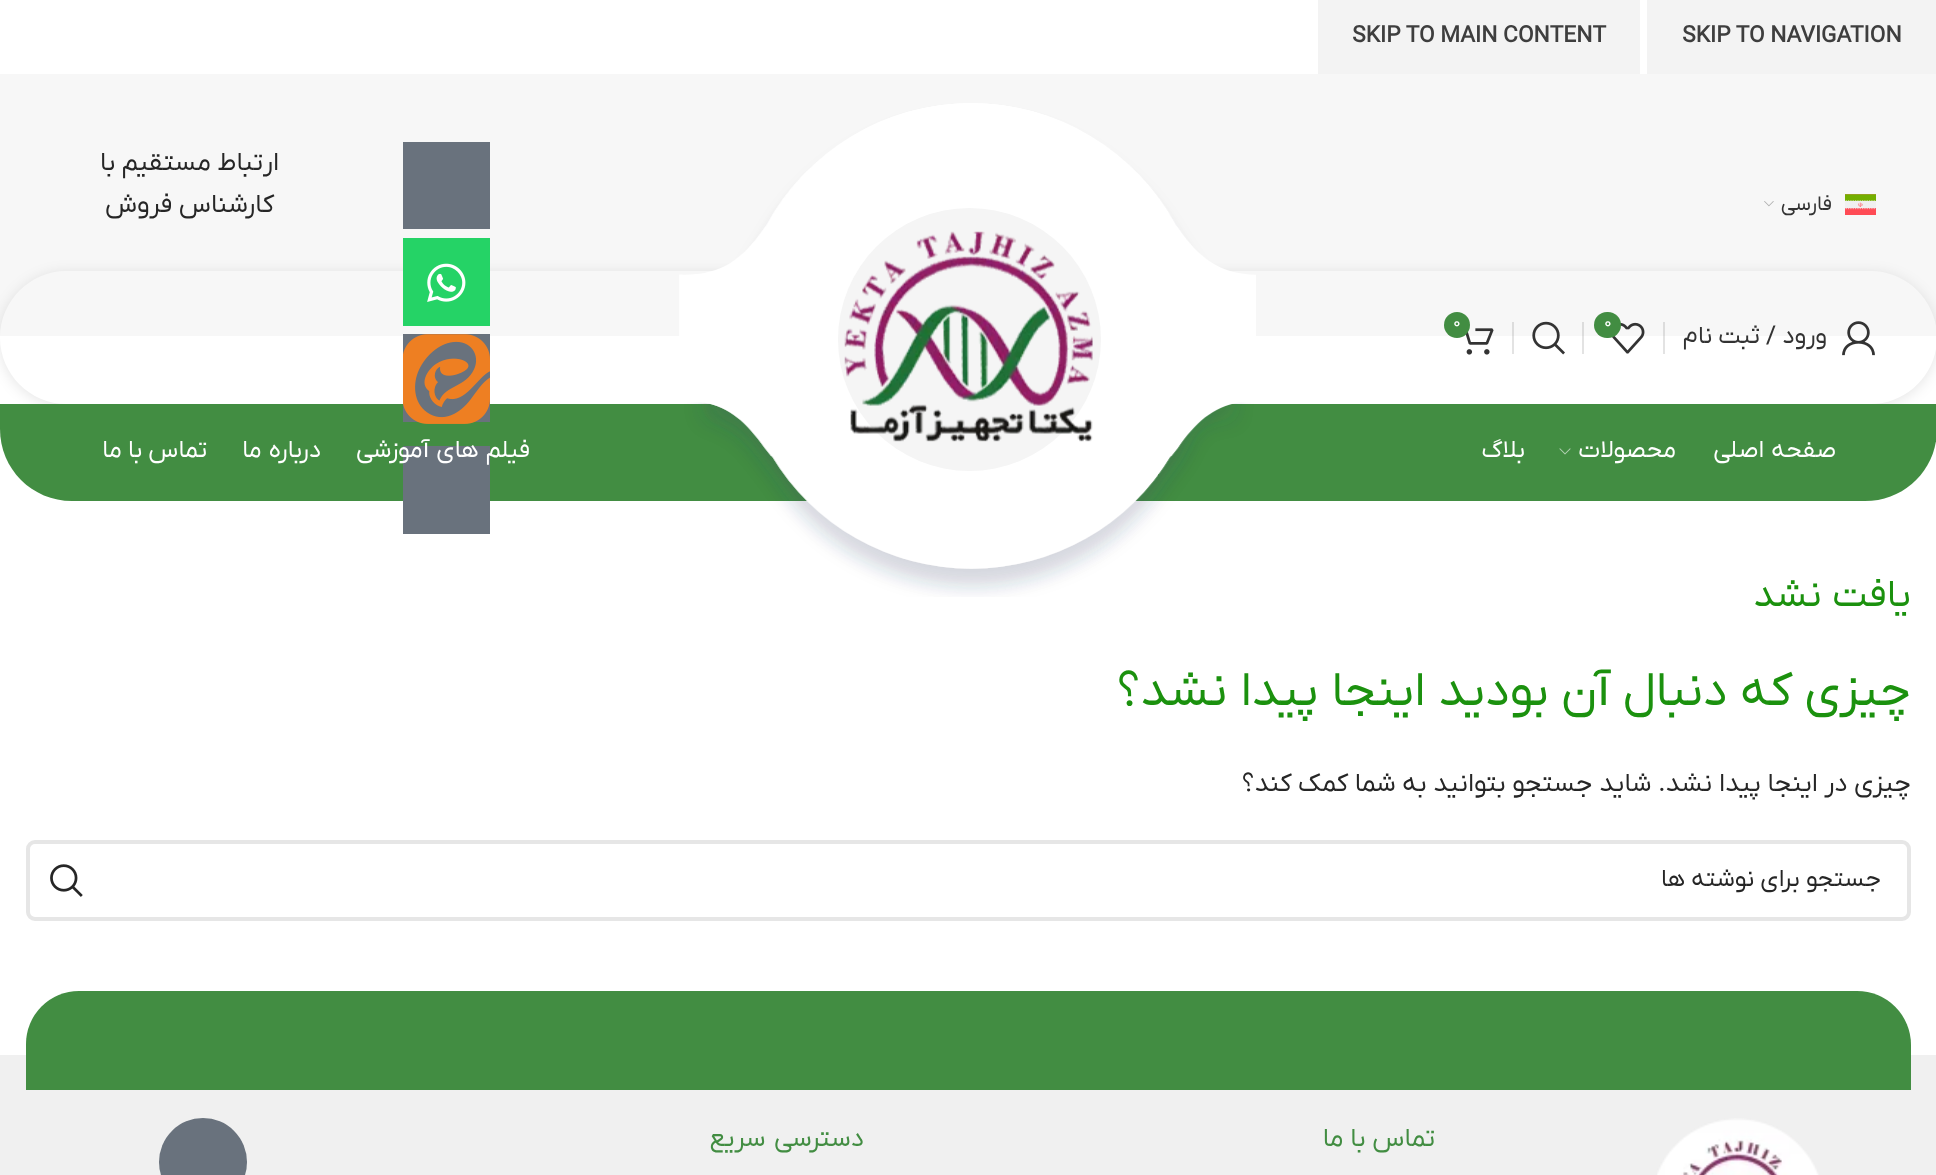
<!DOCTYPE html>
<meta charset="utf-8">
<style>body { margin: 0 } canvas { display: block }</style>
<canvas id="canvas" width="1936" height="1175"></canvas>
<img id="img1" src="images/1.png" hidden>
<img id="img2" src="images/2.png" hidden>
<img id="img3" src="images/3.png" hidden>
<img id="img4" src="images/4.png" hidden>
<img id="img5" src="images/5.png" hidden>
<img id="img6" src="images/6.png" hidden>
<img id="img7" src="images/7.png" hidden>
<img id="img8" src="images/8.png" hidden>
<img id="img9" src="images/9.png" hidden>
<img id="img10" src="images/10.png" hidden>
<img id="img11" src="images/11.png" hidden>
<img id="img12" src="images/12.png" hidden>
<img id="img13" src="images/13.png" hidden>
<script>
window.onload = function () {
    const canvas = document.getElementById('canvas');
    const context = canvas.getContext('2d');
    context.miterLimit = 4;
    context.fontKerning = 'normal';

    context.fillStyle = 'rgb(255, 255, 255)';
    context.fillRect(0, 0, 1936, 1175);
    context.fillStyle = 'rgb(227, 227, 227)';
    context.fillRect(1512, 336, 2, 18);
    context.fillRect(1582, 336, 2, 18);
    context.fillRect(1663, 336, 2, 18);
    context.fillStyle = 'rgb(243, 243, 243)';
    context.fillRect(1647, 0, 289, 74);
    context.fillRect(1318, 0, 322, 74);
    context.fillStyle = 'rgb(247, 247, 247)';
    context.fillRect(0, 74, 1936, 262);
    context.fillStyle = 'rgb(220, 220, 220)';
    context.fillRect(1512, 322, 2, 14);
    context.fillRect(1582, 322, 2, 14);
    context.fillRect(1663, 322, 2, 14);
    context.save();
    context.beginPath();
    context.moveTo(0, 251);
    context.lineTo(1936, 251);
    context.lineTo(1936, 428);
    context.lineTo(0, 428);
    context.closePath();
    context.moveTo(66.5, 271);
    context.lineTo(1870.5, 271);
    context.bezierCurveTo(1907, 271, 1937, 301, 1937, 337.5);
    context.bezierCurveTo(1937, 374, 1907, 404, 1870.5, 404);
    context.lineTo(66.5, 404);
    context.bezierCurveTo(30, 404, 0, 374, 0, 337.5);
    context.bezierCurveTo(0, 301, 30, 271, 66.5, 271);
    context.closePath();
    context.clip('evenodd');
    context.fillStyle = 'rgba(0, 0, 0, 0.1)';
    context.filter = 'blur(7px)';
    context.beginPath();
    context.roundRect(0, 273, 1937, 133, 66.5);
    context.fill();
    context.filter = 'none';
    context.restore();
    context.fillStyle = 'rgb(66, 141, 66)';
    context.beginPath();
    context.moveTo(0, 404);
    context.lineTo(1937, 404);
    context.lineTo(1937, 429);
    context.bezierCurveTo(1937, 469, 1905, 501, 1865, 501);
    context.lineTo(72, 501);
    context.bezierCurveTo(32, 501, 0, 469, 0, 429);
    context.closePath();
    context.fill();
    context.drawImage(document.getElementById('img1'), 679, 103, 577, 494);
    context.fillStyle = 'rgb(105, 114, 125)';
    context.fillRect(403, 142, 87, 87);
    context.fillStyle = 'rgb(37, 211, 102)';
    context.fillRect(403, 238, 87, 88);
    context.drawImage(document.getElementById('img2'), 427, 263, 39, 39);
    context.fillStyle = 'rgb(105, 114, 125)';
    context.fillRect(403, 334, 87, 88);
    context.drawImage(document.getElementById('img3'), 403, 334, 87, 90);
    context.fillRect(403, 446, 87, 88);
    context.drawImage(document.getElementById('img4'), 1612, 322, 33, 32);
    context.fillStyle = 'rgb(66, 141, 66)';
    context.beginPath();
    context.roundRect(1594, 312, 27, 26, 13);
    context.fill();
    context.drawImage(document.getElementById('img5'), 1532, 321, 33, 34);
    context.drawImage(document.getElementById('img6'), 1465, 328, 29, 27);
    context.beginPath();
    context.arc(1457, 325, 13, 0, 2 * Math.PI);
    context.fill();
    context.drawImage(document.getElementById('img7'), 1842, 321, 33, 35);
    context.fillStyle = 'rgb(245, 245, 245)';
    context.beginPath();
    context.arc(969.5, 339.5, 131.5, 0, 2 * Math.PI);
    context.fill();
    context.drawImage(document.getElementById('img8'), 844, 231, 249, 211);
    context.drawImage(document.getElementById('img9'), 1845, 194, 31, 21);
    context.drawImage(document.getElementById('img10'), 1764, 201, 10, 6);
    context.drawImage(document.getElementById('img11'), 1559, 448, 12, 7);
    context.beginPath();
    context.roundRect(28, 842, 1881, 77, 7);
    context.strokeStyle = 'rgb(230, 230, 230)';
    context.lineWidth = 4;
    context.stroke();
    context.drawImage(document.getElementById('img12'), 50, 864, 33, 33);
    context.fillStyle = 'rgb(240, 240, 240)';
    context.fillRect(0, 1055, 1936, 120);
    context.fillStyle = 'rgb(66, 141, 66)';
    context.beginPath();
    context.roundRect(26, 991, 1885, 99, [53, 54, 0, 0]);
    context.fill();
    context.drawImage(document.getElementById('img13'), 1657, 1118, 162, 57);
    context.fillStyle = 'rgb(105, 114, 125)';
    context.beginPath();
    context.arc(203, 1162, 44, 0, 2 * Math.PI);
    context.fill();
    context.font = 'bold 22.75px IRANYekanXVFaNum';
    context.fillStyle = 'rgb(62, 62, 62)';
    context.fillText('SKIP TO NAVIGATION', 1682, 42);
    context.fillText('SKIP TO MAIN CONTENT', 1352, 42);
    context.direction = 'rtl';
    context.font = '26.25px IRANYekanXVFaNum';
    context.fillStyle = 'rgb(38, 38, 38)';
    context.fillText('ارتباط مستقیم با', 279, 170);
    context.fillText('کارشناس فروش', 274, 212);
    context.direction = 'ltr';
    context.font = '16px IRANYekanXVFaNum';
    context.fillStyle = 'rgb(255, 255, 255)';
    context.fillText('0', 1604, 327);
    context.fillText('0', 1453, 327);
    context.direction = 'rtl';
    context.font = '24.5px IRANYekanXVFaNum';
    context.fillStyle = 'rgb(51, 51, 51)';
    context.fillText('ورود / ثبت نام', 1827, 343);
    context.font = '21px IRANYekanXVFaNum';
    context.fillText('فارسی', 1832, 210);
    context.wordSpacing = '1px';
    context.font = '24.5px IRANYekanXVFaNum';
    context.fillStyle = 'rgb(255, 255, 255)';
    context.fillText('صفحه اصلی', 1836, 457);
    context.wordSpacing = '0px';
    context.fillText('محصولات', 1676, 457);
    context.fillText('بلاگ', 1525, 457);
    context.wordSpacing = '1px';
    context.fillText('فیلم های آموزشی', 530, 457);
    context.fillText('درباره ما', 321, 457);
    context.wordSpacing = '0px';
    context.fillText('تماس با ما', 207, 457);
    context.wordSpacing = '1px';
    context.font = '38.5px IRANYekanXVFaNum';
    context.fillStyle = 'rgb(27, 145, 14)';
    context.fillText('یافت نشد', 1911, 606);
    context.wordSpacing = '0.5px';
    context.font = '49px IRANYekanXVFaNum';
    context.fillText('چیزی که دنبال آن بودید اینجا پیدا نشد؟', 1911, 705);
    context.wordSpacing = '0px';
    context.font = '26.25px IRANYekanXVFaNum';
    context.fillStyle = 'rgb(38, 38, 38)';
    context.fillText('چیزی در اینجا پیدا نشد. شاید جستجو بتوانید به شما کمک کند؟', 1911, 791);
    context.font = '24.5px IRANYekanXVFaNum';
    context.fillText('جستجو برای نوشته ها', 1881, 886);
    context.font = '26.25px IRANYekanXVFaNum';
    context.fillStyle = 'rgb(66, 141, 66)';
    context.fillText('تماس با ما', 1435, 1146);
    context.wordSpacing = '2px';
    context.fillText('دسترسی سریع', 864, 1146);
};
</script>
